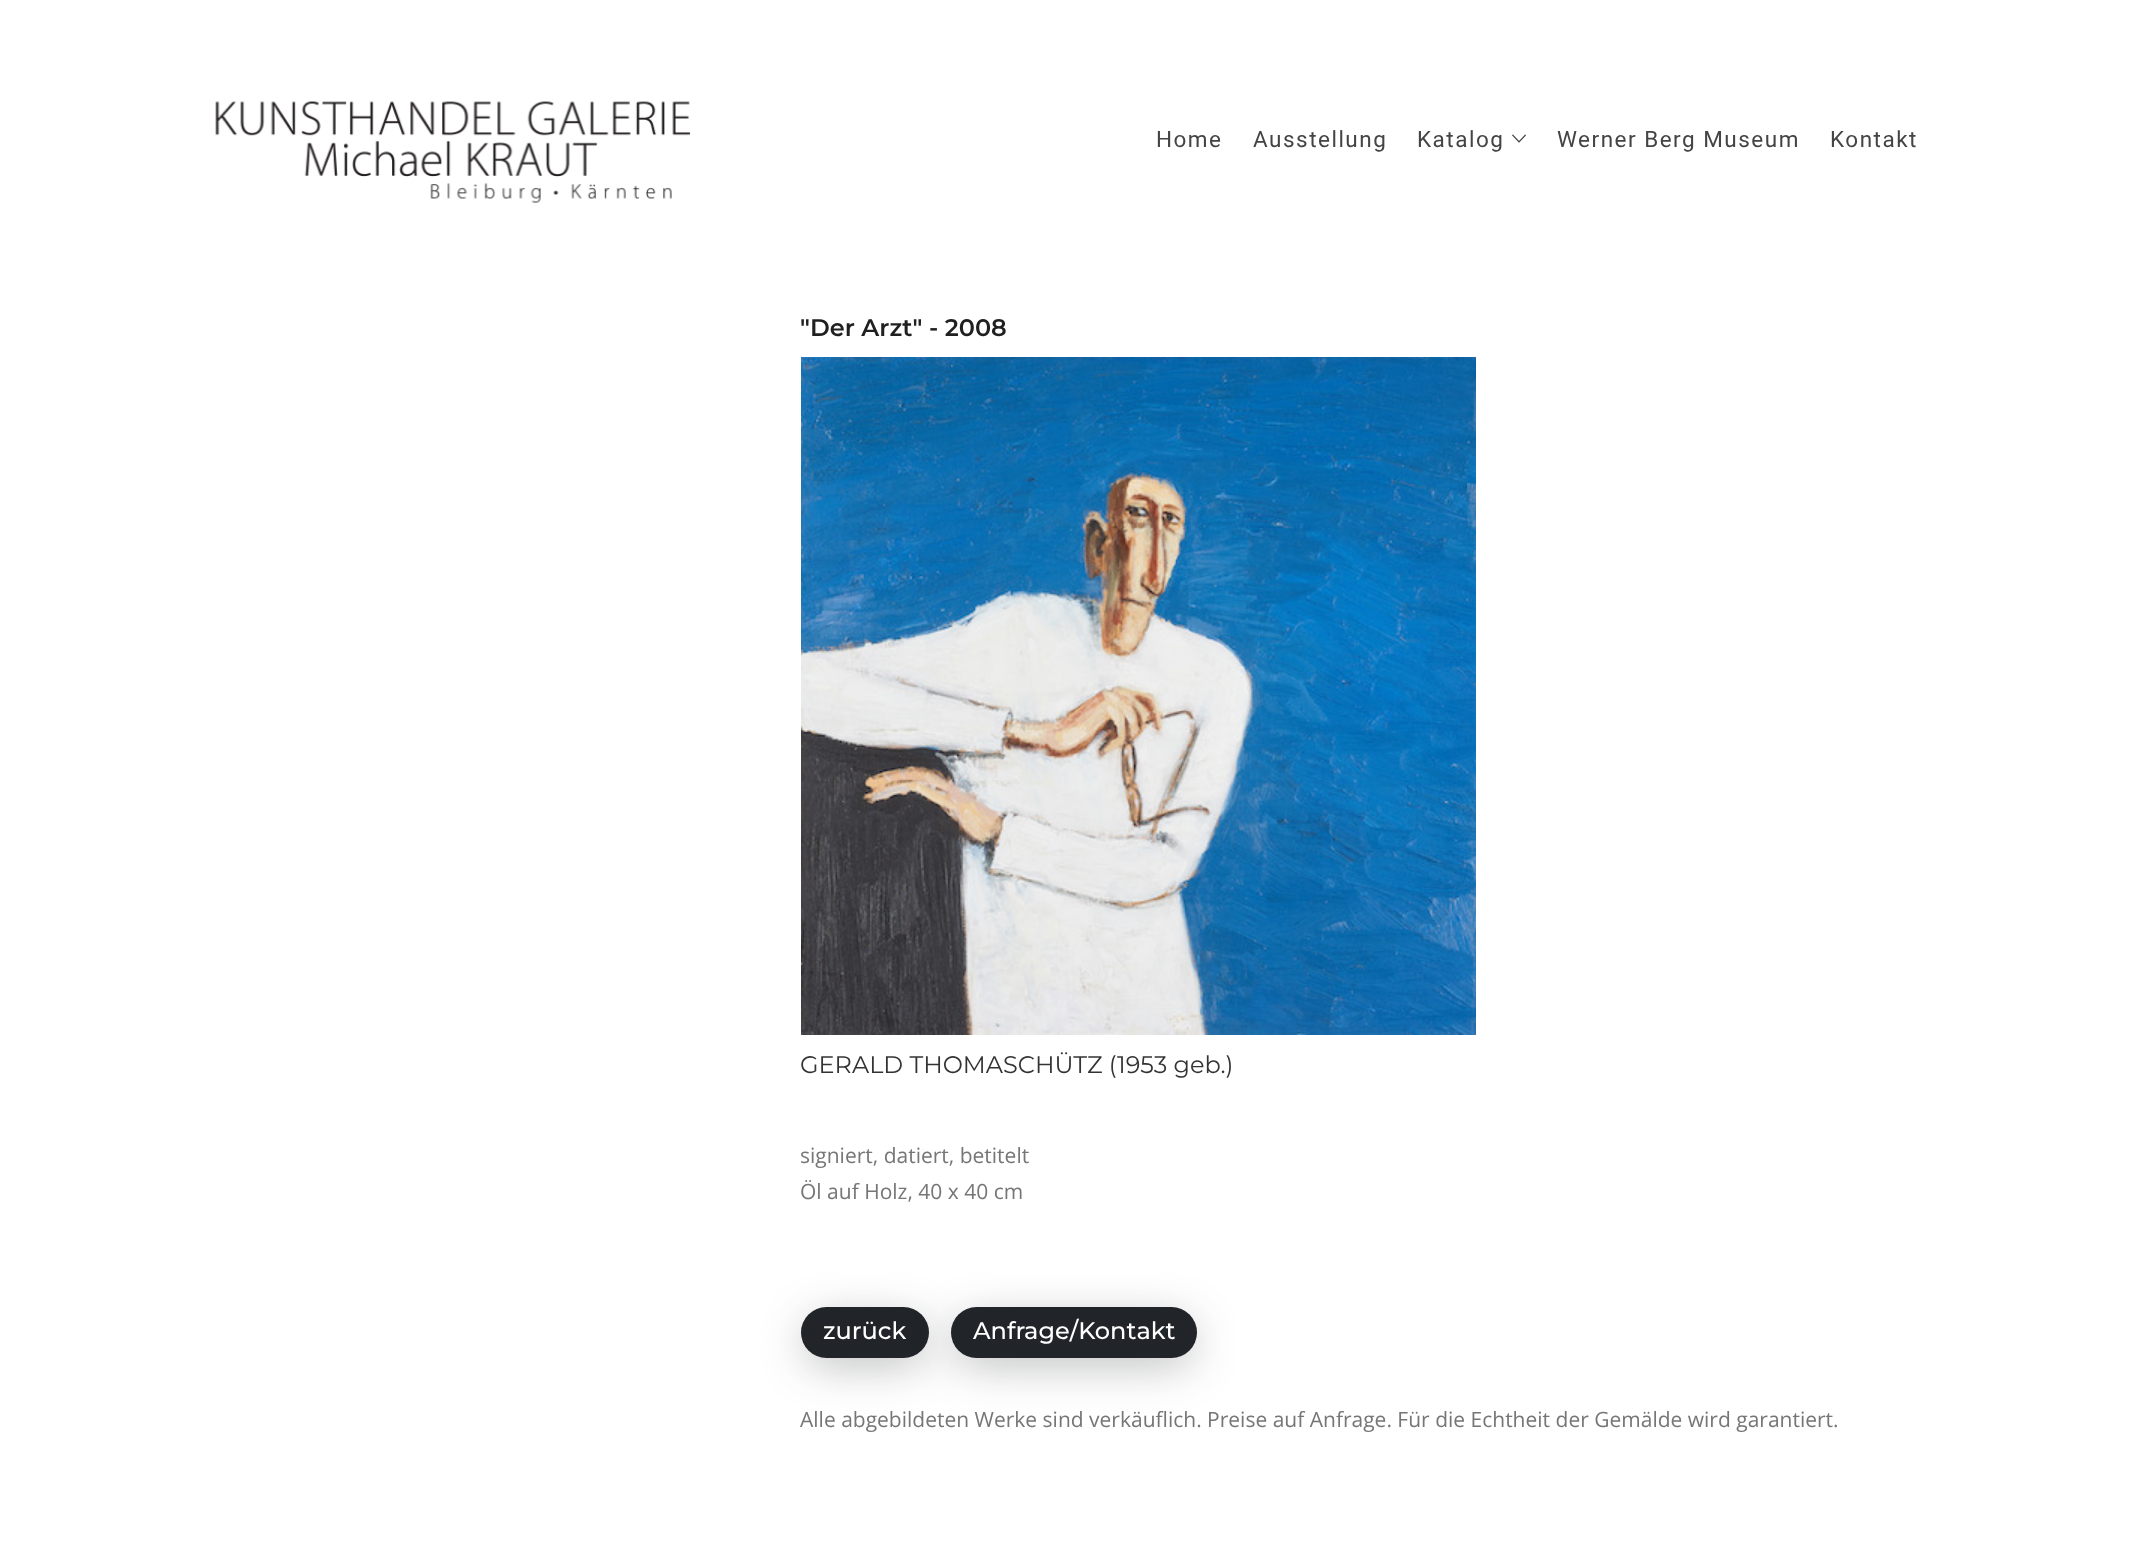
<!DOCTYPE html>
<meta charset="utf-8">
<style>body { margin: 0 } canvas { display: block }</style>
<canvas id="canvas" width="2140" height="1551"></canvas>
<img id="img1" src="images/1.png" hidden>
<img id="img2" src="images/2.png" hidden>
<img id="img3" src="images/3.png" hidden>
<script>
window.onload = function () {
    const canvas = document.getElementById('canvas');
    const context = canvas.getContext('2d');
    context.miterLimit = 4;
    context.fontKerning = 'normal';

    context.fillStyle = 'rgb(255, 255, 255)';
    context.fillRect(0, 0, 2140, 1551);
    context.drawImage(document.getElementById('img1'), 215, 101, 476, 102);
    context.drawImage(document.getElementById('img2'), 1512, 134, 14, 9);
    context.drawImage(document.getElementById('img3'), 801, 357, 675, 678);
    context.fillStyle = 'rgba(33, 37, 41, 0.3)';
    context.filter = 'blur(22.5px)';
    context.beginPath();
    context.roundRect(804, 1320, 122, 45, 22.5);
    context.fill();
    context.filter = 'none';
    context.fillStyle = 'rgb(33, 37, 41)';
    context.beginPath();
    context.roundRect(801, 1307, 128, 51, 25.5);
    context.fill();
    context.fillStyle = 'rgba(33, 37, 41, 0.3)';
    context.filter = 'blur(22.5px)';
    context.beginPath();
    context.roundRect(954, 1320, 240, 45, 22.5);
    context.fill();
    context.filter = 'none';
    context.fillStyle = 'rgb(33, 37, 41)';
    context.beginPath();
    context.roundRect(951, 1307, 246, 51, 25.5);
    context.fill();
    context.letterSpacing = '1.5px';
    context.font = '22.5px Roboto';
    context.fillStyle = 'rgb(68, 68, 68)';
    context.fillText('Home', 1156, 147);
    context.fillText('Ausstellung', 1253, 147);
    context.fillText('Katalog', 1417, 147);
    context.fillText('Werner Berg Museum', 1557, 147);
    context.fillText('Kontakt', 1830, 147);
    context.letterSpacing = '0px';
    context.font = '100 24px Montserrat';
    context.fillStyle = 'rgb(32, 32, 32)';
    context.fillText('"Der Arzt" - 2008', 800, 336);
    context.font = '100 24px "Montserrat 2"';
    context.fillStyle = 'rgb(51, 51, 51)';
    context.fillText('GERALD THOMASCHÜTZ (1953 geb.)', 800, 1073);
    context.font = '21px Open Sans';
    context.fillStyle = 'rgb(118, 118, 118)';
    context.fillText('signiert, datiert, betitelt', 800, 1163);
    context.fillText('Öl auf Holz, 40 x 40 cm', 800, 1199);
    context.font = '100 24px "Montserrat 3"';
    context.fillStyle = 'rgb(255, 255, 255)';
    context.fillText('zurück', 823, 1339);
    context.fillText('Anfrage/Kontakt', 973, 1339);
    context.font = '21px Open Sans';
    context.fillStyle = 'rgb(118, 118, 118)';
    context.fillText('Alle abgebildeten Werke sind verkäuflich. Preise auf Anfrage. Für die Echtheit der Gemälde wird garantiert.', 800, 1427);
};
</script>
